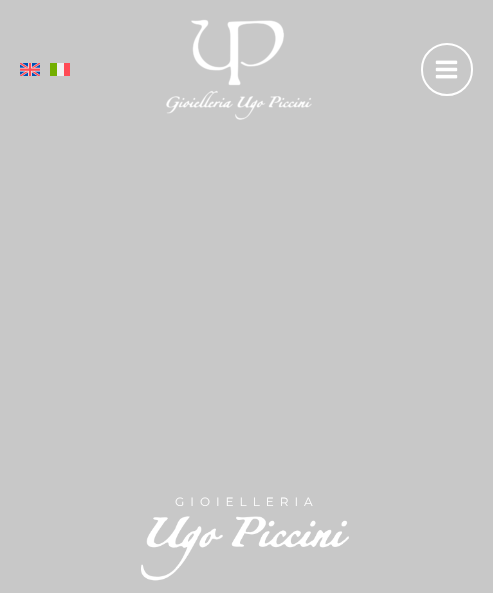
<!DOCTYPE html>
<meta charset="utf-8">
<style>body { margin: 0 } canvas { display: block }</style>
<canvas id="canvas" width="493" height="593"></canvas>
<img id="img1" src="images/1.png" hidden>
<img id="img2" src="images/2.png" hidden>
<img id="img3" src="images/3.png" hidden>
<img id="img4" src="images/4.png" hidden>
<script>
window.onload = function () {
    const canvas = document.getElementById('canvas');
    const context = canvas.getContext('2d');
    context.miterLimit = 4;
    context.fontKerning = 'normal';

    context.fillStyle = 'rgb(200, 200, 200)';
    context.fillRect(0, 0, 493, 593);
    context.drawImage(document.getElementById('img1'), 20, 63, 20, 13);
    context.fillStyle = 'rgb(240, 240, 240)';
    context.fillRect(57, 63, 7, 13);
    context.fillStyle = 'rgb(255, 75, 85)';
    context.fillRect(64, 63, 6, 13);
    context.fillStyle = 'rgb(115, 175, 0)';
    context.fillRect(50, 63, 7, 13);
    context.drawImage(document.getElementById('img2'), 166, 19, 146, 101);
    context.beginPath();
    context.roundRect(422, 44, 50, 51, 25);
    context.strokeStyle = 'rgb(255, 255, 255)';
    context.lineWidth = 2;
    context.stroke();
    context.drawImage(document.getElementById('img3'), 435, 60, 23, 19);
    context.drawImage(document.getElementById('img4'), 141, 516, 208, 65);
    context.letterSpacing = '6px';
    context.font = '100 12px Montserrat';
    context.fillStyle = 'rgb(255, 255, 255)';
    context.fillText('GIOIELLERIA', 175, 506);
};
</script>
